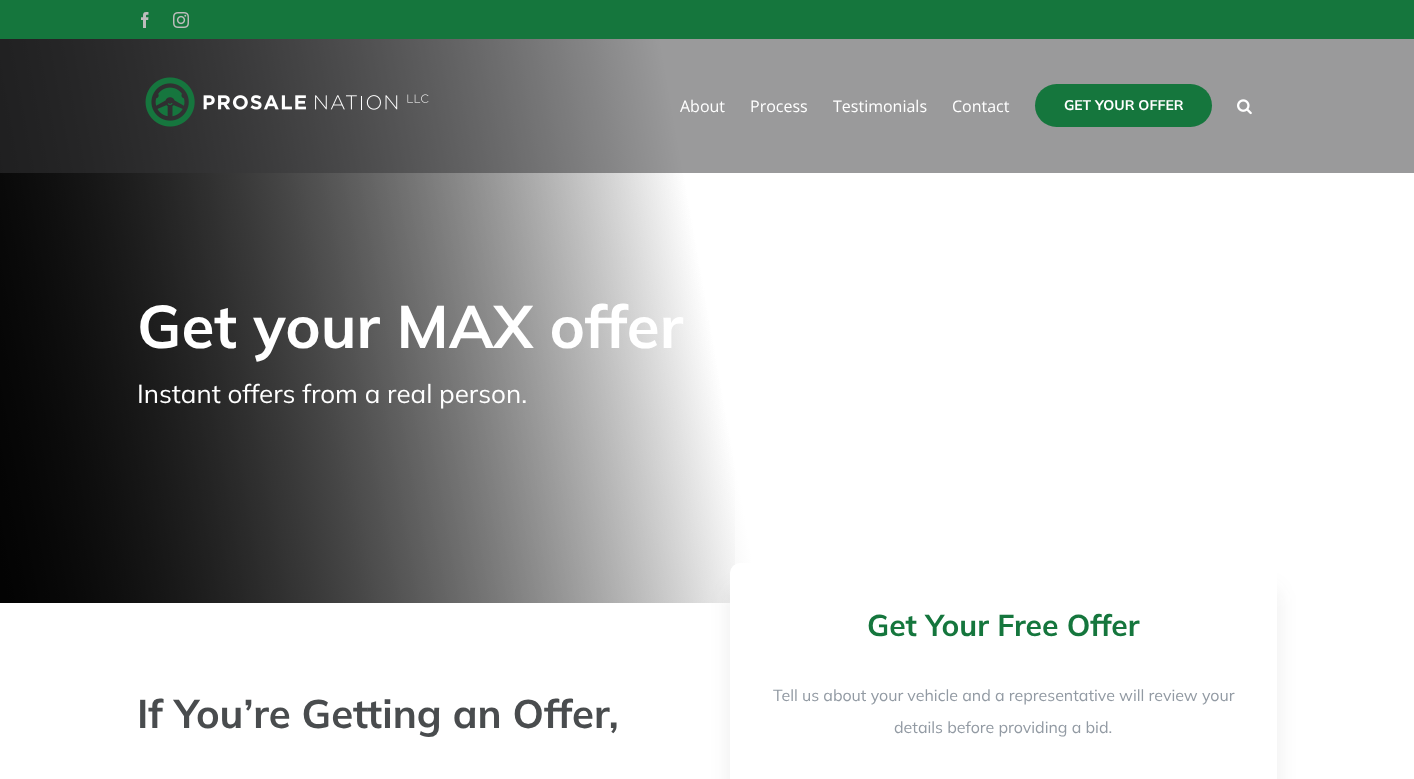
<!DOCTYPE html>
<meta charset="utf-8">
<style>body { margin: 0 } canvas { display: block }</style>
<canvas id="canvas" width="1414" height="779"></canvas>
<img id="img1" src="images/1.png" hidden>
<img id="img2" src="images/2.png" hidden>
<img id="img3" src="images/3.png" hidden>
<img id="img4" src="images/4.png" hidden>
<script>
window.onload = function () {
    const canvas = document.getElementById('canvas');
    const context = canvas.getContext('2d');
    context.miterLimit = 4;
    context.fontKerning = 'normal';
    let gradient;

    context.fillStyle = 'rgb(255, 255, 255)';
    context.fillRect(0, 0, 1414, 779);
    context.fillStyle = 'rgb(21, 118, 61)';
    context.fillRect(0, 0, 1414, 39);
    context.drawImage(document.getElementById('img1'), 141, 12, 8, 16);
    context.drawImage(document.getElementById('img2'), 173, 12, 16, 16);
    gradient = context.createLinearGradient(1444, 172, -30, 431);
    gradient.addColorStop(0.5, 'rgb(255, 255, 255)');
    gradient.addColorStop(1, 'rgb(26, 26, 26)');
    context.fillStyle = gradient;
    context.fillRect(0, 39, 752, 564);
    gradient = context.createLinearGradient(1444, 172, -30, 431);
    gradient.addColorStop(0.5, 'rgba(0, 0, 0, 0)');
    gradient.addColorStop(1, 'rgba(0, 0, 0, 0.9)');
    context.fillStyle = gradient;
    context.fillRect(0, 39, 735, 564);
    context.fillStyle = 'rgba(53, 54, 55, 0.5)';
    context.fillRect(0, 39, 1414, 134);
    context.drawImage(document.getElementById('img3'), 145, 77, 284, 50);
    context.fillStyle = 'rgb(21, 118, 61)';
    context.beginPath();
    context.roundRect(1035, 84, 177, 43, 21.5);
    context.fill();
    context.drawImage(document.getElementById('img4'), 1237, 99, 15, 16);
    context.fillStyle = 'rgba(61, 61, 61, 0.1)';
    context.filter = 'blur(10px)';
    context.beginPath();
    context.roundRect(730, 588, 547, 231, 10);
    context.fill();
    context.filter = 'none';
    context.fillStyle = 'rgb(255, 255, 255)';
    context.beginPath();
    context.roundRect(730, 563, 547, 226, 10);
    context.fill();
    context.font = '16px Open Sans';
    context.fillText('About', 680, 112);
    context.fillText('Process', 750, 112);
    context.fillText('Testimonials', 833, 112);
    context.fillText('Contact', 952, 112);
    context.font = 'bold 14px Mulish';
    context.fillText('GET YOUR OFFER', 1064, 110);
    context.font = 'bold 60px Mulish';
    context.fillText('Get your MAX offer', 137, 348);
    context.font = '26px Mulish';
    context.fillText('Instant offers from a real person.', 137, 403);
    context.font = 'bold 40px Mulish';
    context.fillStyle = 'rgb(73, 76, 78)';
    context.fillText('If You’re Getting an Offer,', 137, 728);
    context.font = 'bold 30px Mulish';
    context.fillStyle = 'rgb(21, 118, 61)';
    context.fillText('Get Your Free Offer', 867, 636);
    context.font = '16px Mulish';
    context.fillStyle = 'rgb(146, 154, 163)';
    context.fillText('Tell us about your vehicle and a representative will review your', 773, 701);
    context.fillText('details before providing a bid.', 894, 733);
};
</script>
